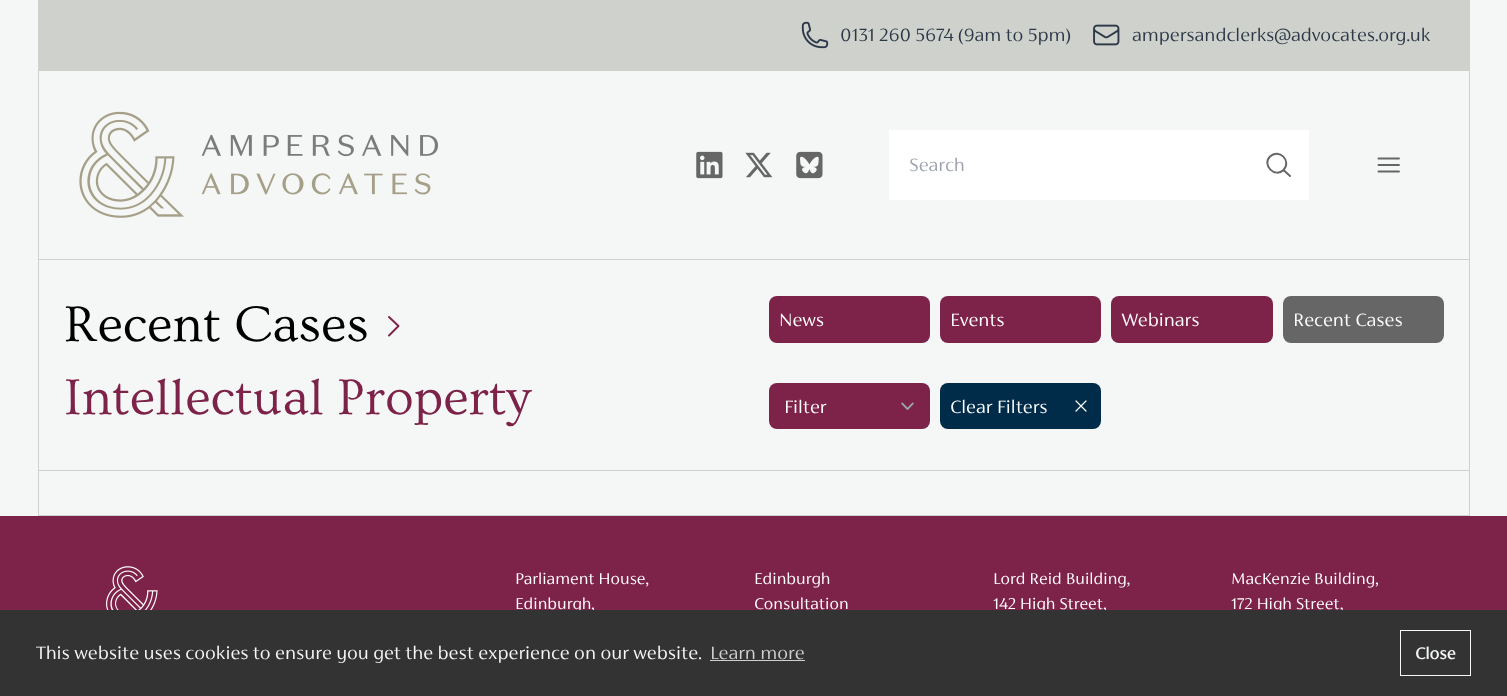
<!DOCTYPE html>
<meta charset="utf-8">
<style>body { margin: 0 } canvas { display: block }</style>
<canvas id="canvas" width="1507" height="696"></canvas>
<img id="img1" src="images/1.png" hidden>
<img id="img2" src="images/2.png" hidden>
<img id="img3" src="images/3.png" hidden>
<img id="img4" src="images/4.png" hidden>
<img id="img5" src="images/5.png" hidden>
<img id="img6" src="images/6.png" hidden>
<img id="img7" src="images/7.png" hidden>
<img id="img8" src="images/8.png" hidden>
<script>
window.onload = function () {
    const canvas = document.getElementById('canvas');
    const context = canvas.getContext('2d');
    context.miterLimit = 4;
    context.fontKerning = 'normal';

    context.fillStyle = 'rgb(244, 247, 246)';
    context.fillRect(0, 0, 1507, 696);
    context.fillStyle = 'rgb(206, 209, 204)';
    context.fillRect(38, 0, 1432, 70);
    context.drawImage(document.getElementById('img1'), 801, 21, 28, 28);
    context.drawImage(document.getElementById('img2'), 1093, 24, 27, 22);
    context.strokeStyle = 'rgb(206, 209, 204)';
    context.strokeRect(38.5, 70.5, 1431, 189);
    context.drawImage(document.getElementById('img3'), 79, 111, 359, 107);
    context.drawImage(document.getElementById('img4'), 696, 151, 27, 28);
    context.drawImage(document.getElementById('img5'), 745, 152, 28, 26);
    context.drawImage(document.getElementById('img6'), 796, 151, 27, 28);
    context.fillStyle = 'rgb(255, 255, 255)';
    context.fillRect(889, 130, 420, 70);
    context.beginPath();
    context.moveTo(1290, 176);
    context.lineTo(1283.5, 170);
    context.moveTo(1283.5, 170);
    context.bezierCurveTo(1292, 161, 1279, 148, 1270, 156.5);
    context.bezierCurveTo(1261.5, 165, 1275, 178.5, 1283.5, 170);
    context.closePath();
    context.strokeStyle = 'rgb(102, 102, 102)';
    context.lineWidth = 1.9;
    context.lineCap = 'round';
    context.lineJoin = 'round';
    context.stroke();
    context.beginPath();
    context.moveTo(1378.5, 158.5);
    context.lineTo(1399, 158.5);
    context.moveTo(1378.5, 165);
    context.lineTo(1399, 165);
    context.moveTo(1378.5, 171.5);
    context.lineTo(1399, 171.5);
    context.stroke();
    context.fillStyle = 'rgb(206, 209, 204)';
    context.fillRect(1469, 260, 1, 256);
    context.fillRect(38, 515, 1432, 1);
    context.fillRect(38, 260, 1, 256);
    context.beginPath();
    context.moveTo(389, 317);
    context.lineTo(398.5, 326);
    context.lineTo(389, 335.5);
    context.strokeStyle = 'rgb(125, 34, 72)';
    context.stroke();
    context.fillStyle = 'rgb(125, 34, 72)';
    context.beginPath();
    context.roundRect(769, 296, 161, 47, 8);
    context.fill();
    context.beginPath();
    context.roundRect(940, 296, 161, 47, 8);
    context.fill();
    context.beginPath();
    context.roundRect(1111, 296, 162, 47, 8);
    context.fill();
    context.fillStyle = 'rgb(102, 102, 102)';
    context.beginPath();
    context.roundRect(1283, 296, 161, 47, 8);
    context.fill();
    context.fillStyle = 'rgb(125, 34, 72)';
    context.beginPath();
    context.roundRect(769, 383, 161, 46, 8);
    context.fill();
    context.drawImage(document.getElementById('img7'), 901, 402, 13, 8);
    context.fillStyle = 'rgb(0, 43, 73)';
    context.beginPath();
    context.roundRect(940, 383, 161, 46, 8);
    context.fill();
    context.beginPath();
    context.moveTo(1076, 411);
    context.lineTo(1086, 401);
    context.moveTo(1076, 401);
    context.lineTo(1086, 411);
    context.strokeStyle = 'rgb(255, 255, 255)';
    context.lineWidth = 1.2;
    context.stroke();
    context.fillStyle = 'rgb(206, 209, 204)';
    context.fillRect(39, 470, 1430, 1);
    context.fillStyle = 'rgb(125, 34, 72)';
    context.fillRect(0, 516, 1507, 94);
    context.drawImage(document.getElementById('img8'), 106, 566, 52, 44);
    context.font = '300 20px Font';
    context.fillStyle = 'rgb(45, 57, 72)';
    context.fillText('0131 260 5674 (9am to 5pm)', 840, 41);
    context.fillText('ampersandclerks@advocates.org.uk', 1132, 41);
    context.fillStyle = 'rgb(156, 163, 175)';
    context.fillText('Search', 909, 171);
    context.font = '52.5px Ovo';
    context.fillStyle = 'rgb(0, 0, 0)';
    context.fillText('Recent Cases', 64, 341);
    context.fillStyle = 'rgb(125, 34, 72)';
    context.fillText('Intellectual Property', 64, 414);
    context.font = '300 20px Font';
    context.fillStyle = 'rgb(255, 255, 255)';
    context.fillText('News', 779, 326);
    context.fillText('Events', 950, 326);
    context.fillText('Webinars', 1121, 326);
    context.fillText('Recent Cases', 1293, 326);
    context.fillText('Filter', 784, 413);
    context.fillText('Clear Filters', 950, 413);
    context.font = '300 17.5px Font';
    context.fillText('Parliament House,', 515, 584);
    context.fillText('Edinburgh,', 515, 609);
    context.fillText('Edinburgh', 754, 584);
    context.fillText('Consultation', 754, 609);
    context.fillText('Lord Reid Building,', 993, 584);
    context.fillText('142 High Street,', 993, 609);
    context.fillText('MacKenzie Building,', 1231, 584);
    context.fillText('172 High Street,', 1231, 609);
    context.fillStyle = 'rgb(51, 51, 51)';
    context.fillRect(0, 610, 1507, 86);
    context.font = '300 20px Font';
    context.fillStyle = 'rgb(244, 247, 246)';
    context.fillText('This website uses cookies to ensure you get the best experience on our website.', 36, 659);
    context.fillStyle = 'rgb(205, 208, 207)';
    context.fillText('Learn more', 710, 659);
    context.fillRect(710, 660, 95, 1);
    context.strokeStyle = 'rgb(244, 247, 246)';
    context.lineWidth = 1;
    context.lineJoin = 'miter';
    context.strokeRect(1400.5, 630.5, 70, 45);
    context.font = 'bold 18px Font';
    context.fillStyle = 'rgb(244, 247, 246)';
    context.fillText('Close', 1415, 659);
};
</script>
